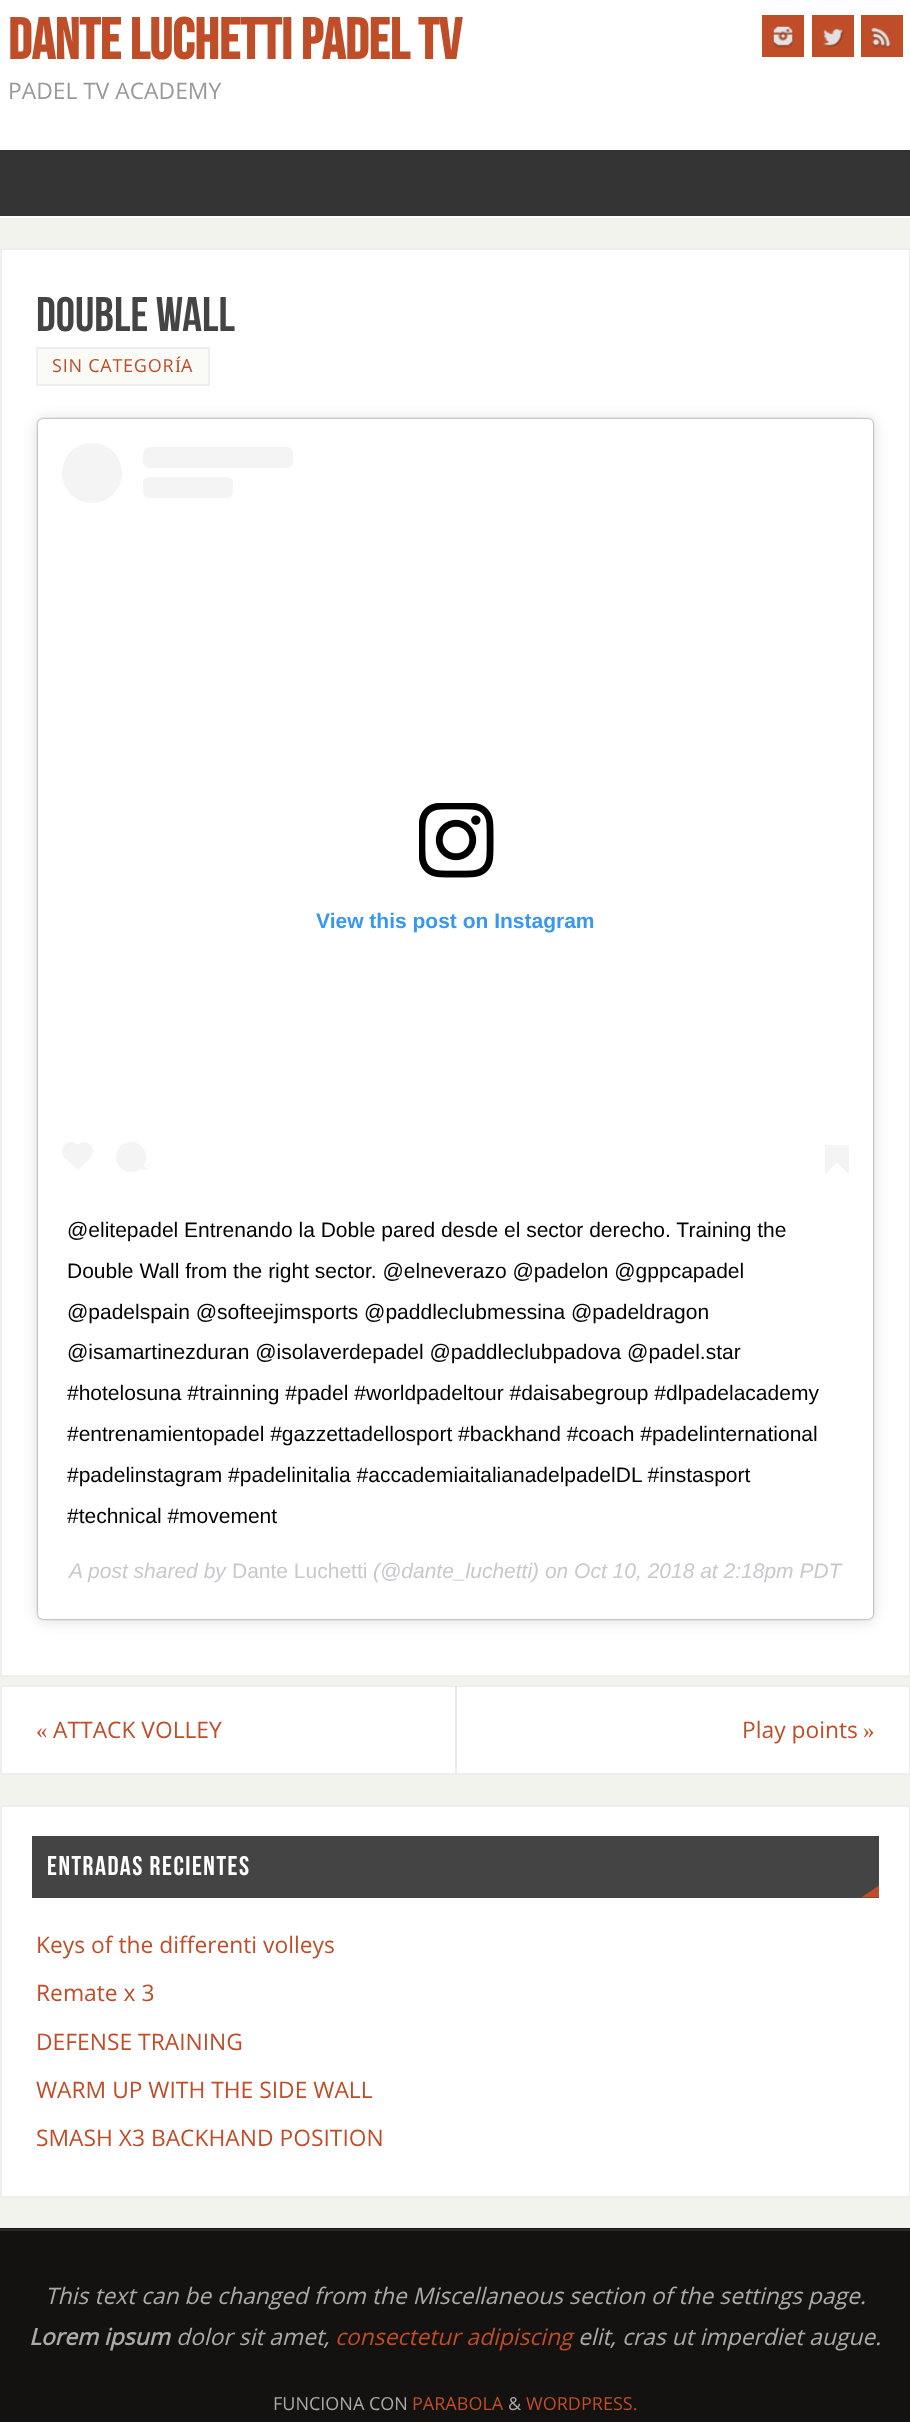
<!DOCTYPE html>
<meta charset="utf-8">
<style>body { margin: 0 } canvas { display: block }</style>
<canvas id="canvas" width="910" height="2422"></canvas>
<img id="img1" src="images/1.png" hidden>
<img id="img2" src="images/2.png" hidden>
<img id="img3" src="images/3.png" hidden>
<img id="img4" src="images/4.png" hidden>
<script>
window.onload = function () {
    const canvas = document.getElementById('canvas');
    const context = canvas.getContext('2d');
    context.miterLimit = 4;
    context.fontKerning = 'normal';

    context.fillStyle = 'rgb(243, 243, 238)';
    context.fillRect(0, 0, 910, 2422);
    context.fillStyle = 'rgb(255, 255, 255)';
    context.fillRect(0, 0, 910, 218);
    context.fillStyle = 'rgb(191, 77, 40)';
    context.fillRect(762, 15, 42, 42);
    context.drawImage(document.getElementById('img1'), 772, 26, 22, 22);
    context.fillRect(812, 15, 42, 42);
    context.drawImage(document.getElementById('img2'), 823, 29, 21, 18);
    context.fillRect(861, 15, 42, 42);
    context.drawImage(document.getElementById('img3'), 870, 27, 21, 22);
    context.fillStyle = 'rgb(51, 51, 51)';
    context.fillRect(0, 150, 910, 66);
    context.fillStyle = 'rgb(255, 255, 255)';
    context.beginPath();
    context.rect(1, 249, 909, 1427);
    context.fill();
    context.strokeStyle = 'rgb(238, 238, 238)';
    context.lineWidth = 2;
    context.stroke();
    context.fillStyle = 'rgb(250, 250, 247)';
    context.beginPath();
    context.rect(37, 348, 172, 37);
    context.fill();
    context.stroke();
    context.fillStyle = 'rgba(0, 0, 0, 0.15)';
    context.filter = 'blur(7.5px)';
    context.beginPath();
    context.roundRect(38, 420, 835, 1200, 5);
    context.fill();
    context.filter = 'none';
    context.fillStyle = 'rgba(0, 0, 0, 0.5)';
    context.filter = 'blur(1px)';
    context.beginPath();
    context.roundRect(38, 419, 835, 1200, 5);
    context.fill();
    context.filter = 'none';
    context.fillStyle = 'rgb(255, 255, 255)';
    context.beginPath();
    context.roundRect(38, 419, 835, 1200, 5);
    context.fill();
    context.fillStyle = 'rgb(244, 244, 244)';
    context.beginPath();
    context.arc(92, 473, 30, 0, 2 * Math.PI);
    context.fill();
    context.beginPath();
    context.roundRect(143, 447, 150, 21, 6);
    context.fill();
    context.beginPath();
    context.roundRect(143, 477, 90, 21, 6);
    context.fill();
    context.drawImage(document.getElementById('img4'), 419, 803, 75, 75);
    context.beginPath();
    context.roundRect(62, 1142, 18, 19, 9);
    context.fill();
    context.beginPath();
    context.moveTo(64.5, 1157);
    context.lineTo(78, 1144);
    context.lineTo(91, 1157);
    context.lineTo(78, 1170.5);
    context.closePath();
    context.fill();
    context.beginPath();
    context.roundRect(75, 1142, 18, 19, 9);
    context.fill();
    context.beginPath();
    context.arc(131, 1157, 15, 0, 2 * Math.PI);
    context.fill();
    context.beginPath();
    context.moveTo(139, 1168.5);
    context.lineTo(142, 1163.5);
    context.lineTo(148.5, 1170.5);
    context.closePath();
    context.fill();
    context.beginPath();
    context.moveTo(825, 1162.5);
    context.lineTo(837, 1162.5);
    context.lineTo(825, 1174.5);
    context.closePath();
    context.fill();
    context.fillRect(825, 1145, 24, 18);
    context.beginPath();
    context.moveTo(837, 1162.5);
    context.lineTo(849, 1162.5);
    context.lineTo(849, 1174.5);
    context.closePath();
    context.fill();
    context.fillStyle = 'rgb(255, 255, 255)';
    context.beginPath();
    context.rect(1, 1686, 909, 88);
    context.fill();
    context.stroke();
    context.fillStyle = 'rgba(0, 0, 0, 0.08)';
    context.fillRect(455, 1686, 2, 87);
    context.fillStyle = 'rgb(255, 255, 255)';
    context.beginPath();
    context.rect(1, 1806, 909, 391);
    context.fill();
    context.stroke();
    context.fillStyle = 'rgb(68, 68, 68)';
    context.fillRect(32, 1836, 847, 62);
    context.fillStyle = 'rgb(191, 77, 40)';
    context.beginPath();
    context.moveTo(879, 1897.5);
    context.lineTo(861, 1897.5);
    context.lineTo(879, 1885.5);
    context.closePath();
    context.fill();
    context.fillStyle = 'rgb(26, 25, 23)';
    context.fillRect(0, 2228, 910, 1);
    context.fillStyle = 'rgb(19, 18, 17)';
    context.fillRect(0, 2231, 910, 191);
    context.fillStyle = 'rgb(43, 42, 41)';
    context.fillRect(0, 2229, 910, 2);
    context.font = 'bold 57.5px Bebas Neue';
    context.fillStyle = 'rgb(191, 77, 40)';
    context.fillText('DANTE LUCHETTI PADEL TV', 8, 59);
    context.font = '22.8px Open Sans';
    context.fillStyle = 'rgb(153, 153, 153)';
    context.fillText('PADEL TV ACADEMY', 8, 99);
    context.font = '48.5px Bebas Neue';
    context.fillStyle = 'rgb(68, 68, 68)';
    context.fillText('DOUBLE WALL', 36, 331);
    context.letterSpacing = '0.75px';
    context.font = '18px Open Sans';
    context.fillStyle = 'rgb(191, 77, 40)';
    context.fillText('SIN CATEGOR', 52, 372);
    context.font = '18px Liberation Serif';
    context.fillText('Í', 175, 372);
    context.font = '18px Open Sans';
    context.fillText('A', 181, 372);
    context.letterSpacing = '0px';
    context.font = 'bold 21px Liberation Sans';
    context.fillStyle = 'rgb(56, 151, 240)';
    context.fillText('View this post on Instagram', 316, 928);
    context.font = '21px Liberation Sans';
    context.fillStyle = 'rgb(0, 0, 0)';
    context.fillText('@elitepadel Entrenando la Doble pared desde el sector derecho. Training the', 67, 1237);
    context.fillText('Double Wall from the right sector. @elneverazo @padelon @gppcapadel', 67, 1278);
    context.fillText('@padelspain @softeejimsports @paddleclubmessina @padeldragon', 67, 1319);
    context.fillText('@isamartinezduran @isolaverdepadel @paddleclubpadova @padel.star', 67, 1359);
    context.fillText('#hotelosuna #trainning #padel #worldpadeltour #daisabegroup #dlpadelacademy', 67, 1400);
    context.fillText('#entrenamientopadel #gazzettadellosport #backhand #coach #padelinternational', 67, 1441);
    context.fillText('#padelinstagram #padelinitalia #accademiaitalianadelpadelDL #instasport', 67, 1482);
    context.fillText('#technical #movement', 67, 1523);
    context.font = 'italic 21px Liberation Sans';
    context.fillStyle = 'rgb(201, 200, 205)';
    context.fillText('A post shared by', 69, 1578);
    context.font = '21px Liberation Sans';
    context.fillText('Dante Luchetti', 232, 1578);
    context.font = 'italic 21px Liberation Sans';
    context.fillText('(@dante_luchetti) on Oct 10, 2018 at 2:18pm PDT', 373, 1578);
    context.font = '22.8px Liberation Serif';
    context.fillStyle = 'rgb(191, 77, 40)';
    context.fillText('«', 36, 1738);
    context.font = '22.8px Open Sans';
    context.fillText('ATTACK VOLLEY', 53, 1738);
    context.fillText('Play points', 742, 1738);
    context.font = '22.8px Liberation Serif';
    context.fillText('»', 863, 1738);
    context.letterSpacing = '1.5px';
    context.font = '27px Bebas Neue';
    context.fillStyle = 'rgb(255, 255, 255)';
    context.fillText('ENTRADAS RECIENTES', 47, 1875);
    context.letterSpacing = '0px';
    context.font = '22.8px Open Sans';
    context.fillStyle = 'rgb(191, 77, 40)';
    context.fillText('Keys of the differenti volleys', 36, 1953);
    context.fillText('Remate x 3', 36, 2001);
    context.fillText('DEFENSE TRAINING', 36, 2050);
    context.fillText('WARM UP WITH THE SIDE WALL', 36, 2098);
    context.fillText('SMASH X3 BACKHAND POSITION', 36, 2146);
    context.font = 'italic 22.8px Open Sans';
    context.fillStyle = 'rgb(170, 170, 170)';
    context.fillText('This text can be changed from the Miscellaneous section of the settings page.', 45, 2304);
    context.font = 'italic bold 22.8px Open Sans';
    context.fillText('Lorem ipsum', 29, 2345);
    context.font = 'italic 22.8px Open Sans';
    context.fillText('dolor sit amet,', 176, 2345);
    context.fillStyle = 'rgb(191, 77, 40)';
    context.fillText('consectetur adipiscing', 335, 2345);
    context.fillStyle = 'rgb(170, 170, 170)';
    context.fillText('elit, cras ut imperdiet augue.', 578, 2345);
    context.font = '18px Open Sans';
    context.fillText('FUNCIONA CON', 273, 2410);
    context.fillStyle = 'rgb(191, 77, 40)';
    context.fillText('PARABOLA', 412, 2410);
    context.fillStyle = 'rgb(170, 170, 170)';
    context.fillText('&', 508, 2410);
    context.fillStyle = 'rgb(191, 77, 40)';
    context.fillText('WORDPRESS.', 526, 2410);
};
</script>
